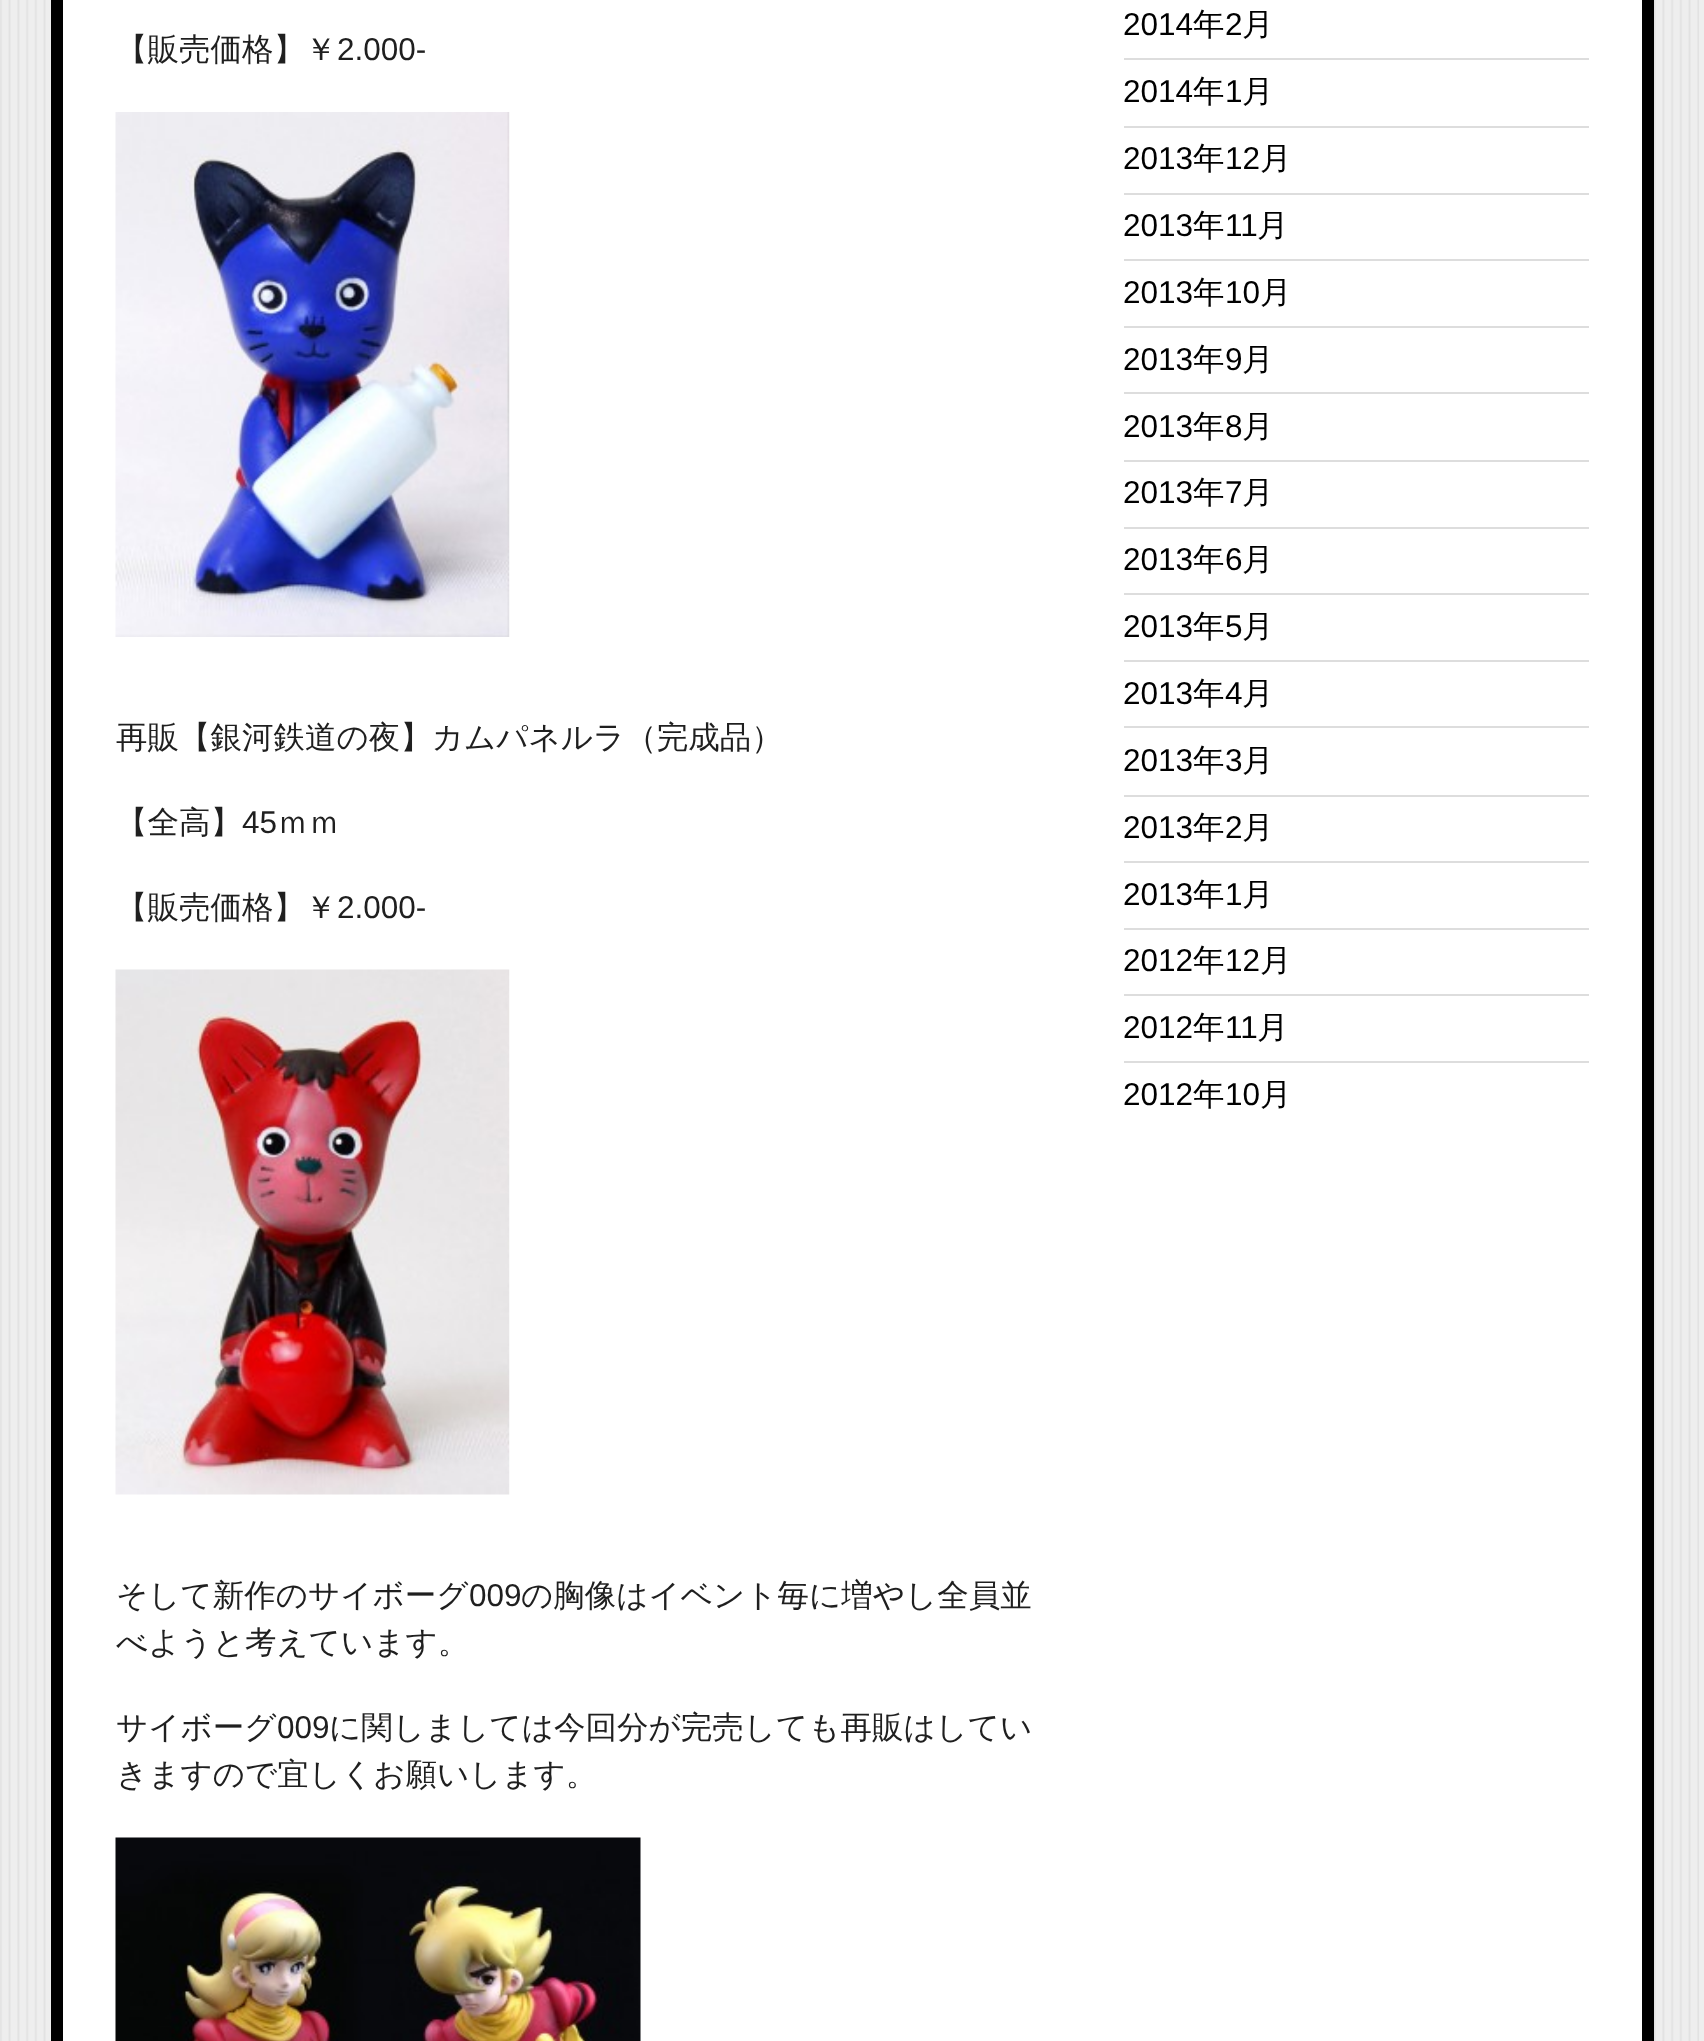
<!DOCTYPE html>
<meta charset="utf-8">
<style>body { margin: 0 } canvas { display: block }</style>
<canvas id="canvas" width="1704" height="2041"></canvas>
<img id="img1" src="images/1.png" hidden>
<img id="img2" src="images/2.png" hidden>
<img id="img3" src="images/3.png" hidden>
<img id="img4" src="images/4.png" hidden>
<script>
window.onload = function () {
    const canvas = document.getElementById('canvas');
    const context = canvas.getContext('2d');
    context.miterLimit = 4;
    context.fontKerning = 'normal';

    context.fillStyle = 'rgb(238, 238, 238)';
    context.fillRect(0, 0, 1704, 2041);
    context.drawImage(document.getElementById('img1'), 0, 0, 1699, 2041);
    context.fillStyle = 'rgb(255, 255, 255)';
    context.beginPath();
    context.rect(57, -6, 1591, 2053);
    context.fill();
    context.strokeStyle = 'rgb(0, 0, 0)';
    context.lineWidth = 12;
    context.stroke();
    context.drawImage(document.getElementById('img2'), 115, 112, 395, 525);
    context.drawImage(document.getElementById('img3'), 115, 969, 395, 526);
    context.drawImage(document.getElementById('img4'), 115, 1837, 526, 204);
    context.fillStyle = 'rgb(221, 221, 221)';
    context.fillRect(1124, 58, 465, 2);
    context.fillRect(1124, 126, 465, 2);
    context.fillRect(1124, 193, 465, 2);
    context.fillRect(1124, 259, 465, 2);
    context.fillRect(1124, 326, 465, 2);
    context.fillRect(1124, 392, 465, 2);
    context.fillRect(1124, 460, 465, 2);
    context.fillRect(1124, 527, 465, 2);
    context.fillRect(1124, 593, 465, 2);
    context.fillRect(1124, 660, 465, 2);
    context.fillRect(1124, 726, 465, 2);
    context.fillRect(1124, 795, 465, 2);
    context.fillRect(1124, 861, 465, 2);
    context.fillRect(1124, 928, 465, 2);
    context.fillRect(1124, 994, 465, 2);
    context.fillRect(1124, 1061, 465, 2);
    context.font = '500 31.5px WenQuanYi Zen Hei';
    context.fillStyle = 'rgb(31, 31, 31)';
    context.fillText('【販売価格】￥', 116, 60);
    context.font = '31.5px Liberation Sans';
    context.fillText('2.000-', 337, 60);
    context.font = '500 31.5px WenQuanYi Zen Hei';
    context.fillText('再販【銀河鉄道の夜】カムパネルラ（完成品）', 116, 748);
    context.fillText('【全高】', 116, 833);
    context.font = '31.5px Liberation Sans';
    context.fillText('45', 242, 833);
    context.font = '500 31.5px WenQuanYi Zen Hei';
    context.fillText('ｍｍ', 277, 833);
    context.fillText('【販売価格】￥', 116, 918);
    context.font = '31.5px Liberation Sans';
    context.fillText('2.000-', 337, 918);
    context.font = '500 31.5px WenQuanYi Zen Hei';
    context.fillText('そして新作のサイボーグ', 116, 1606);
    context.font = '31.5px Liberation Sans';
    context.fillText('009', 469, 1606);
    context.font = '500 31.5px WenQuanYi Zen Hei';
    context.fillText('の胸像はイベント毎に増やし全員並', 521, 1606);
    context.fillText('べようと考えています。', 116, 1653);
    context.fillText('サイボーグ', 116, 1738);
    context.font = '31.5px Liberation Sans';
    context.fillText('009', 277, 1738);
    context.font = '500 31.5px WenQuanYi Zen Hei';
    context.fillText('に関しましては今回分が完売しても再販はしてい', 329, 1738);
    context.fillText('きますので宜しくお願いします。', 116, 1785);
    context.font = '31.5px Liberation Sans';
    context.fillStyle = 'rgb(0, 0, 0)';
    context.fillText('2014', 1123, 35);
    context.font = '500 31.5px WenQuanYi Zen Hei';
    context.fillText('年', 1193, 35);
    context.font = '31.5px Liberation Sans';
    context.fillText('2', 1225, 35);
    context.font = '500 31.5px WenQuanYi Zen Hei';
    context.fillText('月', 1242, 35);
    context.font = '31.5px Liberation Sans';
    context.fillText('2014', 1123, 102);
    context.font = '500 31.5px WenQuanYi Zen Hei';
    context.fillText('年', 1193, 102);
    context.font = '31.5px Liberation Sans';
    context.fillText('1', 1225, 102);
    context.font = '500 31.5px WenQuanYi Zen Hei';
    context.fillText('月', 1242, 102);
    context.font = '31.5px Liberation Sans';
    context.fillText('2013', 1123, 169);
    context.font = '500 31.5px WenQuanYi Zen Hei';
    context.fillText('年', 1193, 169);
    context.font = '31.5px Liberation Sans';
    context.fillText('12', 1225, 169);
    context.font = '500 31.5px WenQuanYi Zen Hei';
    context.fillText('月', 1260, 169);
    context.font = '31.5px Liberation Sans';
    context.fillText('2013', 1123, 236);
    context.font = '500 31.5px WenQuanYi Zen Hei';
    context.fillText('年', 1193, 236);
    context.font = '31.5px Liberation Sans';
    context.fillText('11', 1225, 236);
    context.font = '500 31.5px WenQuanYi Zen Hei';
    context.fillText('月', 1257, 236);
    context.font = '31.5px Liberation Sans';
    context.fillText('2013', 1123, 303);
    context.font = '500 31.5px WenQuanYi Zen Hei';
    context.fillText('年', 1193, 303);
    context.font = '31.5px Liberation Sans';
    context.fillText('10', 1225, 303);
    context.font = '500 31.5px WenQuanYi Zen Hei';
    context.fillText('月', 1260, 303);
    context.font = '31.5px Liberation Sans';
    context.fillText('2013', 1123, 370);
    context.font = '500 31.5px WenQuanYi Zen Hei';
    context.fillText('年', 1193, 370);
    context.font = '31.5px Liberation Sans';
    context.fillText('9', 1225, 370);
    context.font = '500 31.5px WenQuanYi Zen Hei';
    context.fillText('月', 1242, 370);
    context.font = '31.5px Liberation Sans';
    context.fillText('2013', 1123, 437);
    context.font = '500 31.5px WenQuanYi Zen Hei';
    context.fillText('年', 1193, 437);
    context.font = '31.5px Liberation Sans';
    context.fillText('8', 1225, 437);
    context.font = '500 31.5px WenQuanYi Zen Hei';
    context.fillText('月', 1242, 437);
    context.font = '31.5px Liberation Sans';
    context.fillText('2013', 1123, 503);
    context.font = '500 31.5px WenQuanYi Zen Hei';
    context.fillText('年', 1193, 503);
    context.font = '31.5px Liberation Sans';
    context.fillText('7', 1225, 503);
    context.font = '500 31.5px WenQuanYi Zen Hei';
    context.fillText('月', 1242, 503);
    context.font = '31.5px Liberation Sans';
    context.fillText('2013', 1123, 570);
    context.font = '500 31.5px WenQuanYi Zen Hei';
    context.fillText('年', 1193, 570);
    context.font = '31.5px Liberation Sans';
    context.fillText('6', 1225, 570);
    context.font = '500 31.5px WenQuanYi Zen Hei';
    context.fillText('月', 1242, 570);
    context.font = '31.5px Liberation Sans';
    context.fillText('2013', 1123, 637);
    context.font = '500 31.5px WenQuanYi Zen Hei';
    context.fillText('年', 1193, 637);
    context.font = '31.5px Liberation Sans';
    context.fillText('5', 1225, 637);
    context.font = '500 31.5px WenQuanYi Zen Hei';
    context.fillText('月', 1242, 637);
    context.font = '31.5px Liberation Sans';
    context.fillText('2013', 1123, 704);
    context.font = '500 31.5px WenQuanYi Zen Hei';
    context.fillText('年', 1193, 704);
    context.font = '31.5px Liberation Sans';
    context.fillText('4', 1225, 704);
    context.font = '500 31.5px WenQuanYi Zen Hei';
    context.fillText('月', 1242, 704);
    context.font = '31.5px Liberation Sans';
    context.fillText('2013', 1123, 771);
    context.font = '500 31.5px WenQuanYi Zen Hei';
    context.fillText('年', 1193, 771);
    context.font = '31.5px Liberation Sans';
    context.fillText('3', 1225, 771);
    context.font = '500 31.5px WenQuanYi Zen Hei';
    context.fillText('月', 1242, 771);
    context.font = '31.5px Liberation Sans';
    context.fillText('2013', 1123, 838);
    context.font = '500 31.5px WenQuanYi Zen Hei';
    context.fillText('年', 1193, 838);
    context.font = '31.5px Liberation Sans';
    context.fillText('2', 1225, 838);
    context.font = '500 31.5px WenQuanYi Zen Hei';
    context.fillText('月', 1242, 838);
    context.font = '31.5px Liberation Sans';
    context.fillText('2013', 1123, 905);
    context.font = '500 31.5px WenQuanYi Zen Hei';
    context.fillText('年', 1193, 905);
    context.font = '31.5px Liberation Sans';
    context.fillText('1', 1225, 905);
    context.font = '500 31.5px WenQuanYi Zen Hei';
    context.fillText('月', 1242, 905);
    context.font = '31.5px Liberation Sans';
    context.fillText('2012', 1123, 971);
    context.font = '500 31.5px WenQuanYi Zen Hei';
    context.fillText('年', 1193, 971);
    context.font = '31.5px Liberation Sans';
    context.fillText('12', 1225, 971);
    context.font = '500 31.5px WenQuanYi Zen Hei';
    context.fillText('月', 1260, 971);
    context.font = '31.5px Liberation Sans';
    context.fillText('2012', 1123, 1038);
    context.font = '500 31.5px WenQuanYi Zen Hei';
    context.fillText('年', 1193, 1038);
    context.font = '31.5px Liberation Sans';
    context.fillText('11', 1225, 1038);
    context.font = '500 31.5px WenQuanYi Zen Hei';
    context.fillText('月', 1257, 1038);
    context.font = '31.5px Liberation Sans';
    context.fillText('2012', 1123, 1105);
    context.font = '500 31.5px WenQuanYi Zen Hei';
    context.fillText('年', 1193, 1105);
    context.font = '31.5px Liberation Sans';
    context.fillText('10', 1225, 1105);
    context.font = '500 31.5px WenQuanYi Zen Hei';
    context.fillText('月', 1260, 1105);
};
</script>
